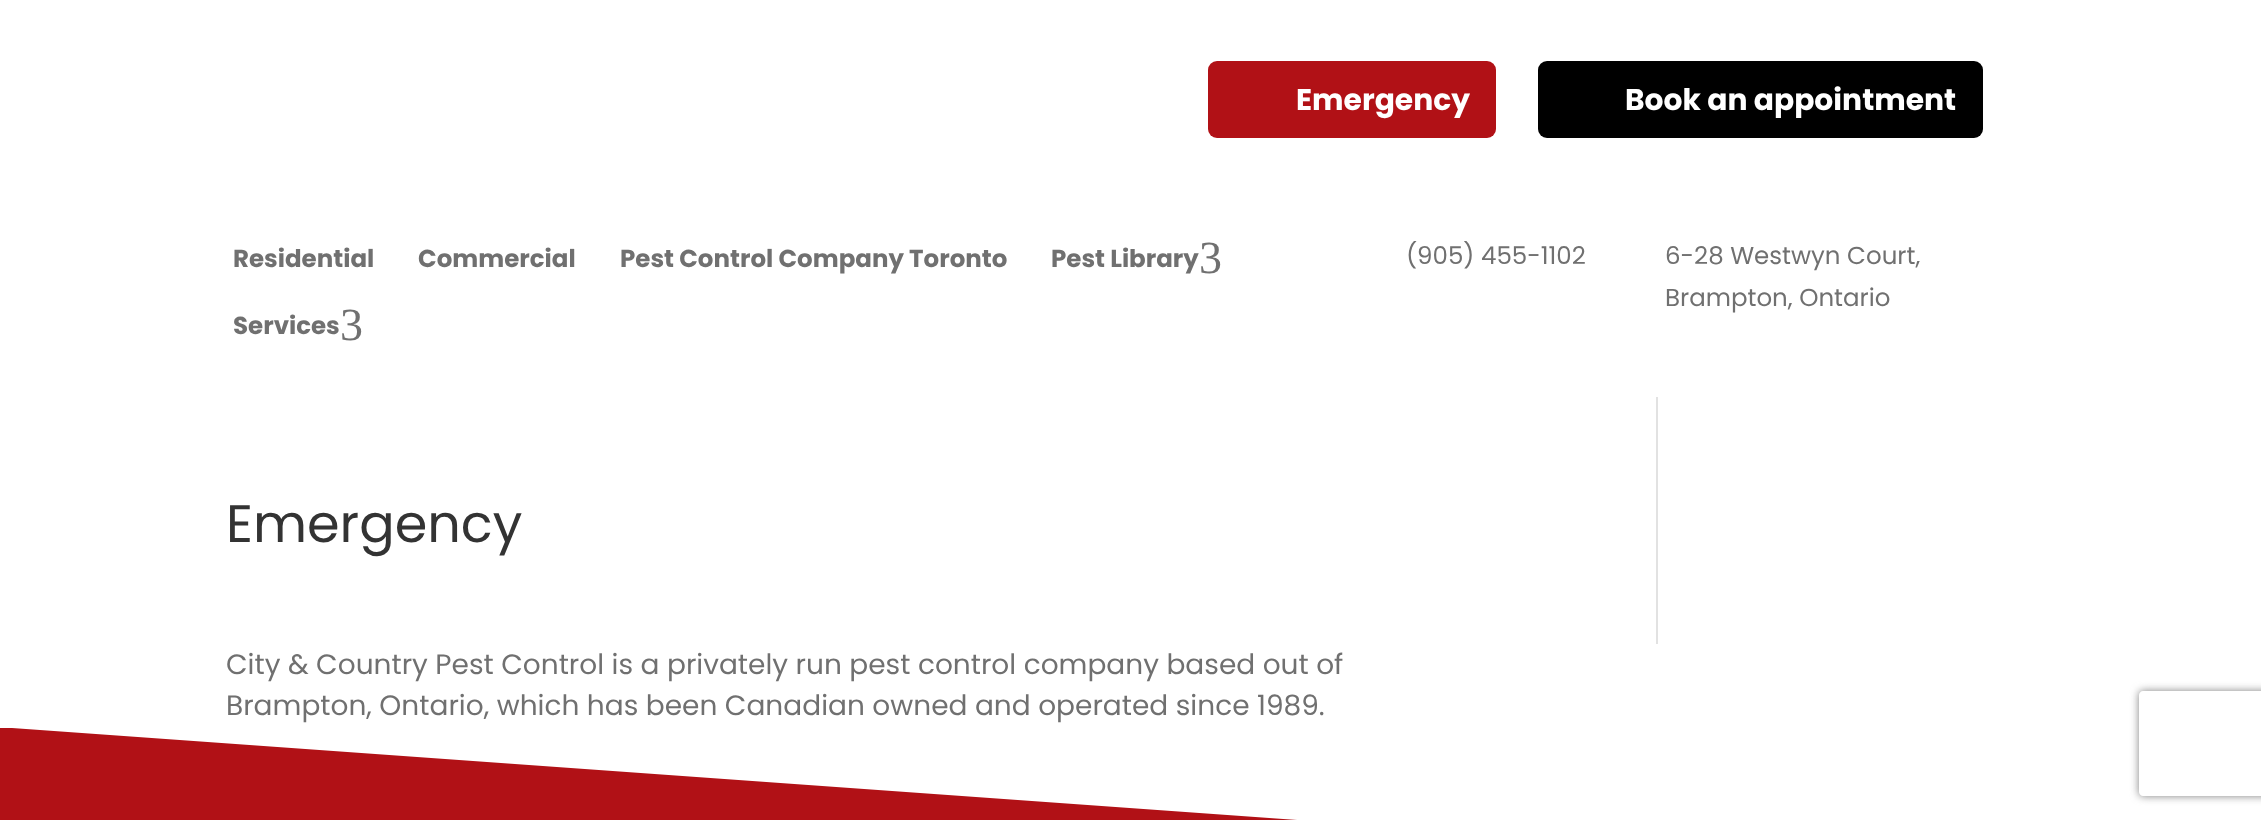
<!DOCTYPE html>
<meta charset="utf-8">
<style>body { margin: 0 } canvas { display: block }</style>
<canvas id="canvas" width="2261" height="820"></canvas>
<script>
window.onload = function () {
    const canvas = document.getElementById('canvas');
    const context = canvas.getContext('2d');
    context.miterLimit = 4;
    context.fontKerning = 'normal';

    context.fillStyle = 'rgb(255, 255, 255)';
    context.fillRect(0, 0, 2261, 820);
    context.fillStyle = 'rgb(177, 17, 22)';
    context.beginPath();
    context.roundRect(1208, 61, 288, 77, 9);
    context.fill();
    context.fillStyle = 'rgb(0, 0, 0)';
    context.beginPath();
    context.roundRect(1538, 61, 445, 77, 9);
    context.fill();
    context.fillStyle = 'rgb(226, 226, 226)';
    context.fillRect(1656, 397, 2, 247);
    context.fillStyle = 'rgb(177, 17, 22)';
    context.beginPath();
    context.moveTo(0, 728);
    context.lineTo(0, 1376);
    context.lineTo(2261, 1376);
    context.lineTo(2261, 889);
    context.lineTo(12, 728);
    context.closePath();
    context.fill();
    context.save();
    context.beginPath();
    context.moveTo(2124, 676);
    context.lineTo(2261, 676);
    context.lineTo(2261, 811);
    context.lineTo(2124, 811);
    context.closePath();
    context.moveTo(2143, 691);
    context.lineTo(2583, 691);
    context.bezierCurveTo(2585, 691, 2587, 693, 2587, 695);
    context.lineTo(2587, 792);
    context.bezierCurveTo(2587, 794, 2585, 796, 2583, 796);
    context.lineTo(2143, 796);
    context.bezierCurveTo(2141, 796, 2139, 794, 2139, 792);
    context.lineTo(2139, 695);
    context.bezierCurveTo(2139, 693, 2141, 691, 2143, 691);
    context.closePath();
    context.clip('evenodd');
    context.fillStyle = 'rgb(128, 128, 128)';
    context.filter = 'blur(4.5px)';
    context.beginPath();
    context.roundRect(2139, 691, 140, 105, 4);
    context.fill();
    context.filter = 'none';
    context.restore();
    context.font = 'bold 29.75px Poppins';
    context.fillStyle = 'rgb(255, 255, 255)';
    context.fillText('Emergency', 1296, 110);
    context.fillText('Book an appointment', 1625, 110);
    context.font = 'bold 24.5px Poppins';
    context.fillStyle = 'rgb(112, 112, 112)';
    context.fillText('Residential', 233, 267);
    context.fillText('Commercial', 418, 267);
    context.fillText('Pest Control Company Toronto', 620, 267);
    context.fillText('Pest Library', 1051, 267);
    context.font = '46px Liberation Serif';
    context.fillText('3', 1199, 273);
    context.font = 'bold 24.5px Poppins';
    context.fillText('Services', 233, 334);
    context.font = '46px Liberation Serif';
    context.fillText('3', 340, 340);
    context.font = '24.5px Poppins';
    context.fillText('(905) 455-1102', 1406, 264);
    context.fillText('6-28 Westwyn Court,', 1665, 264);
    context.fillText('Brampton, Ontario', 1665, 306);
    context.font = '52.5px Poppins';
    context.fillStyle = 'rgb(51, 51, 51)';
    context.fillText('Emergency', 226, 542);
    context.font = '28px Poppins';
    context.fillStyle = 'rgb(112, 112, 112)';
    context.fillText('City & Country Pest Control is a privately run pest control company based out of', 226, 674);
    context.fillText('Brampton, Ontario, which has been Canadian owned and operated since 1989.', 226, 715);
};
</script>
